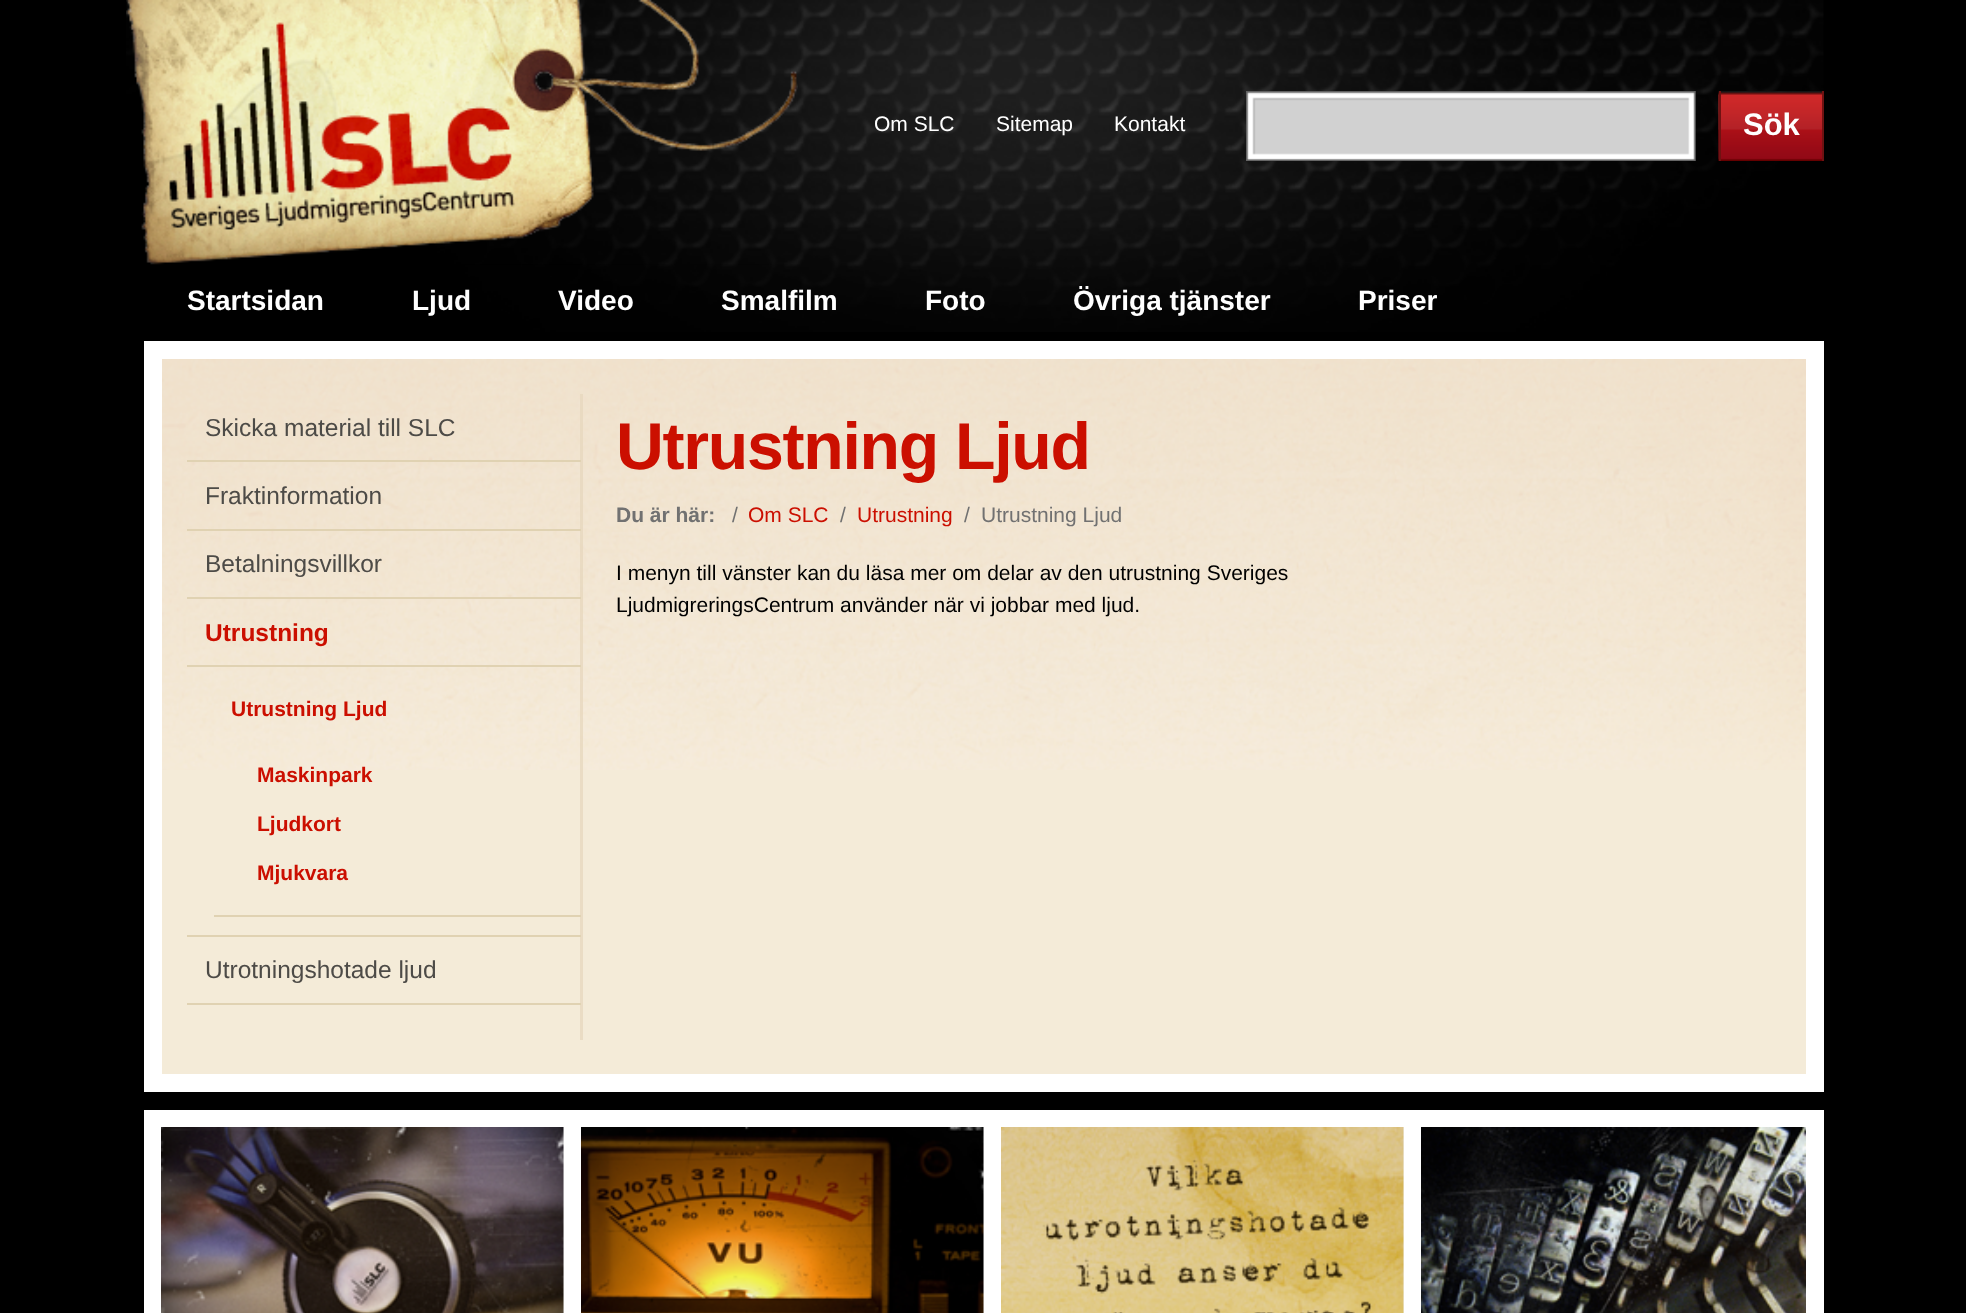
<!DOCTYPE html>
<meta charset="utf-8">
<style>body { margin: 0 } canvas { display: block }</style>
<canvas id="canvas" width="1966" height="1313"></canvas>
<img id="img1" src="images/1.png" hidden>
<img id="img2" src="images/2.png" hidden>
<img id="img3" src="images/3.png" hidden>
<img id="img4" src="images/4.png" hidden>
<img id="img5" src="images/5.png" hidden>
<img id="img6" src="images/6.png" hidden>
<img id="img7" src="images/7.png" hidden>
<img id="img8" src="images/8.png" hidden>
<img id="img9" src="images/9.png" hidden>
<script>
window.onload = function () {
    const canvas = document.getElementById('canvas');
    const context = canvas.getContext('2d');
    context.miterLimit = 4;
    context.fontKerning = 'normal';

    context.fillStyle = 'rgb(0, 0, 0)';
    context.fillRect(0, 0, 1966, 1313);
    context.drawImage(document.getElementById('img1'), 143, 0, 1681, 332);
    context.drawImage(document.getElementById('img2'), 126, 0, 672, 265);
    context.drawImage(document.getElementById('img3'), 1246, 91, 450, 70);
    context.drawImage(document.getElementById('img4'), 1718, 91, 104, 70);
    context.fillStyle = 'rgb(112, 18, 18)';
    context.fillRect(1822, 91, 2, 70);
    context.fillRect(1719, 91, 2, 70);
    context.fillStyle = 'rgb(244, 235, 216)';
    context.fillRect(162, 770, 1644, 304);
    context.drawImage(document.getElementById('img5'), 162, 359, 1644, 411);
    context.strokeStyle = 'rgb(255, 255, 255)';
    context.lineWidth = 18;
    context.strokeRect(153, 350, 1662, 733);
    context.fillStyle = 'rgba(231, 215, 190, 0.78)';
    context.fillRect(580, 394, 3, 646);
    context.fillStyle = 'rgb(224, 210, 178)';
    context.fillRect(187, 460, 394, 2);
    context.fillRect(187, 529, 394, 2);
    context.fillRect(187, 597, 394, 2);
    context.fillRect(187, 665, 394, 2);
    context.fillRect(187, 935, 394, 2);
    context.fillRect(214, 915, 367, 2);
    context.fillRect(187, 1003, 394, 2);
    context.fillStyle = 'rgb(255, 255, 255)';
    context.fillRect(144, 1110, 1680, 203);
    context.fillStyle = 'rgb(240, 240, 240)';
    context.fillRect(563, 1127, 1, 186);
    context.drawImage(document.getElementById('img6'), 161, 1127, 403, 186);
    context.fillRect(983, 1127, 1, 186);
    context.drawImage(document.getElementById('img7'), 581, 1127, 403, 186);
    context.fillRect(1403, 1127, 1, 186);
    context.drawImage(document.getElementById('img8'), 1001, 1127, 403, 186);
    context.drawImage(document.getElementById('img9'), 1421, 1127, 385, 186);
    context.font = '21px Liberation Sans';
    context.fillStyle = 'rgb(255, 255, 255)';
    context.fillText('Om SLC', 874, 131);
    context.fillText('Sitemap', 996, 131);
    context.fillText('Kontakt', 1114, 131);
    context.font = 'bold 31px Liberation Sans';
    context.fillText('Sök', 1743, 135);
    context.font = 'bold 28px Liberation Sans';
    context.fillText('Startsidan', 187, 310);
    context.fillText('Ljud', 412, 310);
    context.fillText('Video', 558, 310);
    context.fillText('Smalfilm', 721, 310);
    context.fillText('Foto', 925, 310);
    context.fillText('Övriga tjänster', 1073, 310);
    context.fillText('Priser', 1358, 310);
    context.font = '24.5px Liberation Sans';
    context.fillStyle = 'rgb(77, 75, 71)';
    context.fillText('Skicka material till SLC', 205, 436);
    context.fillText('Fraktinformation', 205, 504);
    context.fillText('Betalningsvillkor', 205, 572);
    context.font = 'bold 24.5px Liberation Sans';
    context.fillStyle = 'rgb(203, 15, 0)';
    context.fillText('Utrustning', 205, 641);
    context.font = 'bold 21px Liberation Sans';
    context.fillText('Utrustning Ljud', 231, 716);
    context.fillText('Maskinpark', 257, 782);
    context.fillText('Ljudkort', 257, 831);
    context.fillText('Mjukvara', 257, 880);
    context.font = '24.5px Liberation Sans';
    context.fillStyle = 'rgb(77, 75, 71)';
    context.fillText('Utrotningshotade ljud', 205, 978);
    context.letterSpacing = '-1.3px';
    context.font = 'bold 66.25px Liberation Sans';
    context.fillStyle = 'rgb(203, 15, 0)';
    context.fillText('Utrustning Ljud', 616, 469);
    context.letterSpacing = '0px';
    context.font = 'bold 21px Liberation Sans';
    context.fillStyle = 'rgb(113, 113, 113)';
    context.fillText('Du är här:', 616, 522);
    context.font = '21px Liberation Sans';
    context.fillText('/', 732, 522);
    context.fillStyle = 'rgb(203, 15, 0)';
    context.fillText('Om SLC', 748, 522);
    context.fillStyle = 'rgb(113, 113, 113)';
    context.fillText('/', 840, 522);
    context.fillStyle = 'rgb(203, 15, 0)';
    context.fillText('Utrustning', 857, 522);
    context.fillStyle = 'rgb(113, 113, 113)';
    context.fillText('/', 964, 522);
    context.fillText('Utrustning Ljud', 981, 522);
    context.fillStyle = 'rgb(0, 0, 0)';
    context.fillText('I menyn till vänster kan du läsa mer om delar av den utrustning Sveriges', 616, 580);
    context.fillText('LjudmigreringsCentrum använder när vi jobbar med ljud.', 616, 612);
};
</script>
